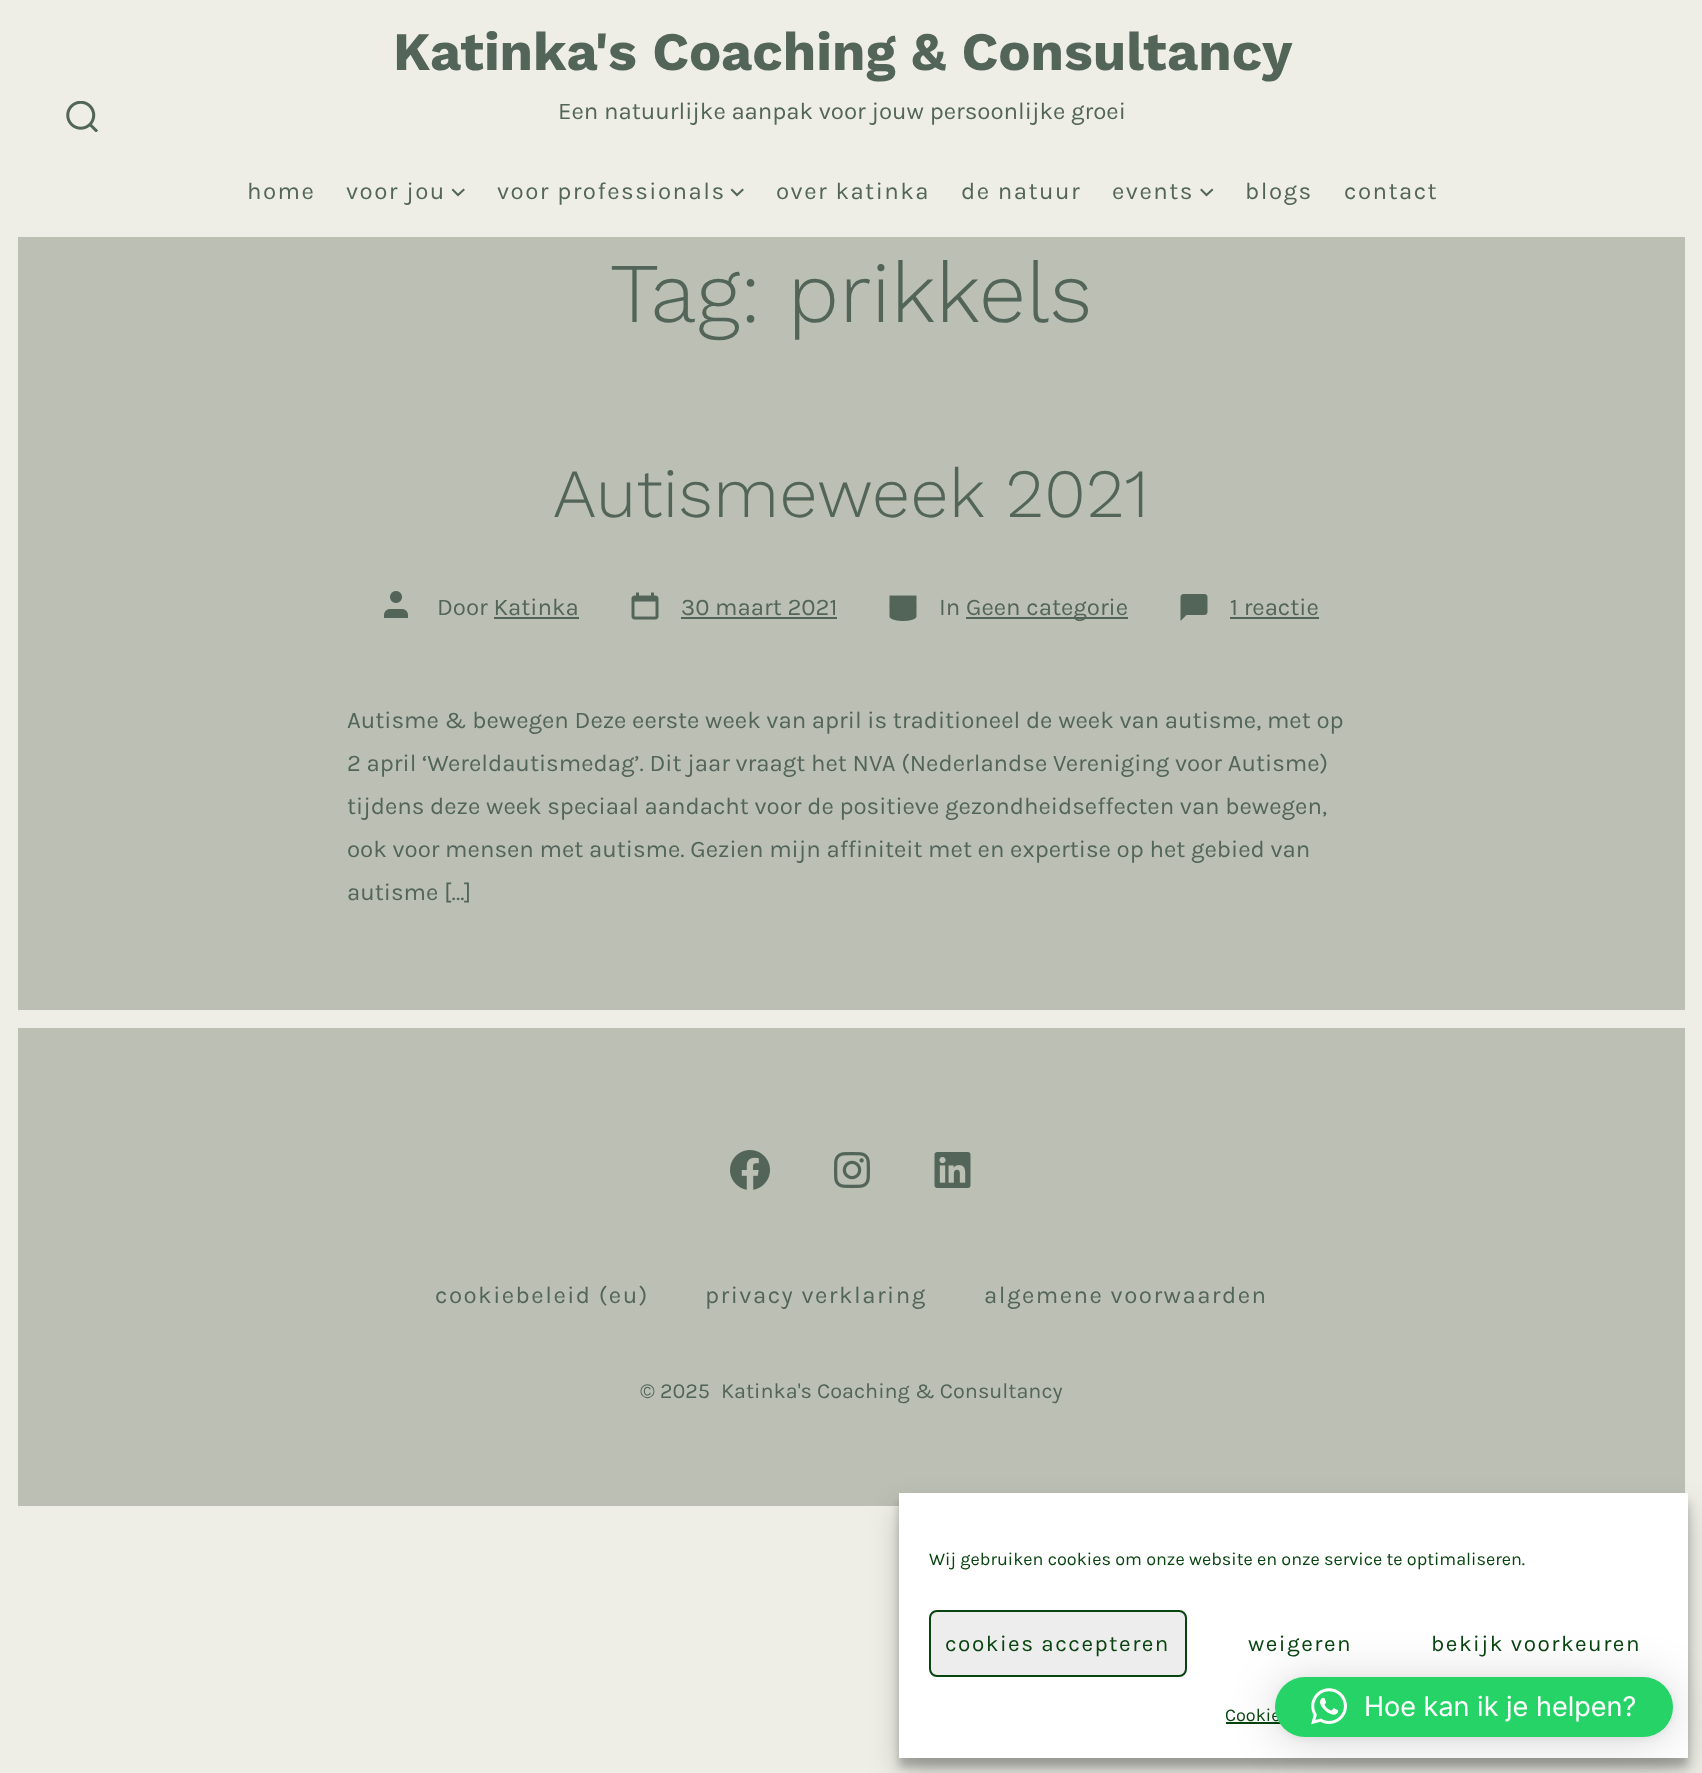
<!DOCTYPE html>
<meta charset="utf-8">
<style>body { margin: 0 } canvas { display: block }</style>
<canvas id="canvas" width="1702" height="1773"></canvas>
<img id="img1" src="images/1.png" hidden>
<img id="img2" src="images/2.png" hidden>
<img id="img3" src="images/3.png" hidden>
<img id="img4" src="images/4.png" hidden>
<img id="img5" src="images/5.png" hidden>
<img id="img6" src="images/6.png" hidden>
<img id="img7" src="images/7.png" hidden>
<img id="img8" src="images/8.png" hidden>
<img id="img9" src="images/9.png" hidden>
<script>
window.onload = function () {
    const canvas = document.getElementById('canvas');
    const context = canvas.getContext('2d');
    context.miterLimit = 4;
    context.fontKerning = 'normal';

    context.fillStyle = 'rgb(238, 238, 231)';
    context.fillRect(0, 0, 1702, 1773);
    context.fillStyle = 'rgb(188, 192, 180)';
    context.fillRect(18, 237, 1667, 1269);
    context.drawImage(document.getElementById('img1'), 66, 101, 32, 31);
    context.beginPath();
    context.moveTo(453, 190);
    context.lineTo(458, 195);
    context.lineTo(463.5, 190);
    context.strokeStyle = 'rgb(83, 101, 89)';
    context.lineWidth = 2;
    context.lineCap = 'square';
    context.stroke();
    context.beginPath();
    context.moveTo(732, 190);
    context.lineTo(737, 195);
    context.lineTo(742.5, 190);
    context.stroke();
    context.beginPath();
    context.moveTo(1201.5, 190);
    context.lineTo(1206.5, 195);
    context.lineTo(1212, 190);
    context.stroke();
    context.drawImage(document.getElementById('img2'), 384, 591, 24, 27);
    context.fillStyle = 'rgb(83, 101, 89)';
    context.fillRect(494, 617, 85, 2);
    context.drawImage(document.getElementById('img3'), 631, 592, 28, 28);
    context.fillRect(681, 617, 156, 2);
    context.drawImage(document.getElementById('img4'), 889, 595, 28, 26);
    context.fillRect(966, 617, 162, 2);
    context.drawImage(document.getElementById('img5'), 1180, 594, 28, 27);
    context.fillRect(1230, 617, 89, 2);
    context.fillStyle = 'rgb(238, 238, 231)';
    context.fillRect(18, 1010, 1667, 18);
    context.drawImage(document.getElementById('img6'), 730, 1150, 40, 40);
    context.drawImage(document.getElementById('img7'), 834, 1152, 36, 36);
    context.drawImage(document.getElementById('img8'), 934, 1152, 37, 36);
    context.fillStyle = 'rgba(0, 0, 0, 0.23)';
    context.filter = 'blur(4.5px)';
    context.beginPath();
    context.rect(899, 1502, 789, 265);
    context.fill();
    context.filter = 'none';
    context.fillStyle = 'rgba(0, 0, 0, 0.19)';
    context.filter = 'blur(15px)';
    context.beginPath();
    context.rect(899, 1508, 789, 265);
    context.fill();
    context.filter = 'none';
    context.fillStyle = 'rgb(255, 255, 255)';
    context.fillRect(899, 1493, 789, 265);
    context.fillStyle = 'rgb(237, 237, 237)';
    context.beginPath();
    context.roundRect(930, 1611, 256, 65, 7);
    context.fill();
    context.strokeStyle = 'rgb(8, 68, 15)';
    context.stroke();
    context.fillStyle = 'rgb(8, 68, 15)';
    context.fillRect(1226, 1722, 55, 2);
    context.fillStyle = 'rgba(0, 0, 0, 0.16)';
    context.filter = 'blur(24px)';
    context.beginPath();
    context.roundRect(1275, 1680, 398, 60, 30);
    context.fill();
    context.filter = 'none';
    context.fillStyle = 'rgba(0, 0, 0, 0.06)';
    context.filter = 'blur(4.5px)';
    context.beginPath();
    context.roundRect(1275, 1679, 398, 60, 30);
    context.fill();
    context.filter = 'none';
    context.font = 'bold 54px Work Sans';
    context.fillStyle = 'rgb(83, 101, 89)';
    context.fillText('Katinka\'s Coaching & Consultancy', 393, 70);
    context.font = '24px Karla';
    context.fillText('Een natuurlijke aanpak voor jouw persoonlijke groei', 558, 119);
    context.letterSpacing = '1.5px';
    context.fillText('home', 247, 199);
    context.fillText('voor jou', 346, 199);
    context.fillText('voor professionals', 497, 199);
    context.fillText('over katinka', 776, 199);
    context.fillText('de natuur', 961, 199);
    context.fillText('events', 1112, 199);
    context.fillText('blogs', 1245, 199);
    context.fillText('contact', 1344, 199);
    context.letterSpacing = '0px';
    context.font = '300 85px Work Sans';
    context.fillText('Tag: prikkels', 610, 322);
    context.font = '300 69px Work Sans';
    context.fillText('Autismeweek 2021', 553, 517);
    context.font = '24px Karla';
    context.fillText('Door Katinka', 437, 615);
    context.fillText('30 maart 2021', 681, 615);
    context.fillText('In', 939, 615);
    context.fillText('Geen categorie', 966, 615);
    context.fillText('1 reactie', 1230, 615);
    context.fillText('Autisme & bewegen Deze eerste week van april is traditioneel de week van autisme, met op', 347, 728);
    context.fillText('2 april ‘Wereldautismedag’. Dit jaar vraagt het NVA (Nederlandse Vereniging voor Autisme)', 347, 771);
    context.fillText('tijdens deze week speciaal aandacht voor de positieve gezondheidseffecten van bewegen,', 347, 814);
    context.fillText('ook voor mensen met autisme. Gezien mijn affiniteit met en expertise op het gebied van', 347, 857);
    context.fillText('autisme […]', 347, 900);
    context.letterSpacing = '1.5px';
    context.fillText('cookiebeleid (eu)', 435, 1303);
    context.fillText('privacy verklaring', 705, 1303);
    context.fillText('algemene voorwaarden', 984, 1303);
    context.letterSpacing = '0px';
    context.font = '21.6px Karla';
    context.fillText('© 2025', 640, 1398);
    context.fillText('Katinka\'s Coaching & Consultancy', 721, 1398);
    context.font = '18px Karla';
    context.fillStyle = 'rgb(8, 68, 15)';
    context.fillText('Wij gebruiken cookies om onze website en onze service te optimaliseren.', 929, 1565);
    context.letterSpacing = '1.5px';
    context.font = '22.5px Karla';
    context.fillText('cookies accepteren', 945, 1651);
    context.fillText('weigeren', 1248, 1651);
    context.fillText('bekijk voorkeuren', 1431, 1651);
    context.letterSpacing = '0px';
    context.font = '18px Karla';
    context.fillText('Cookie', 1225, 1721);
    context.fillStyle = 'rgb(37, 211, 102)';
    context.beginPath();
    context.roundRect(1275, 1677, 398, 60, 30);
    context.fill();
    context.drawImage(document.getElementById('img9'), 1311, 1688, 36, 37);
    context.font = '27px Inter';
    context.fillStyle = 'rgb(255, 255, 255)';
    context.fillText('Hoe kan ik je helpen?', 1364, 1716);
};
</script>
